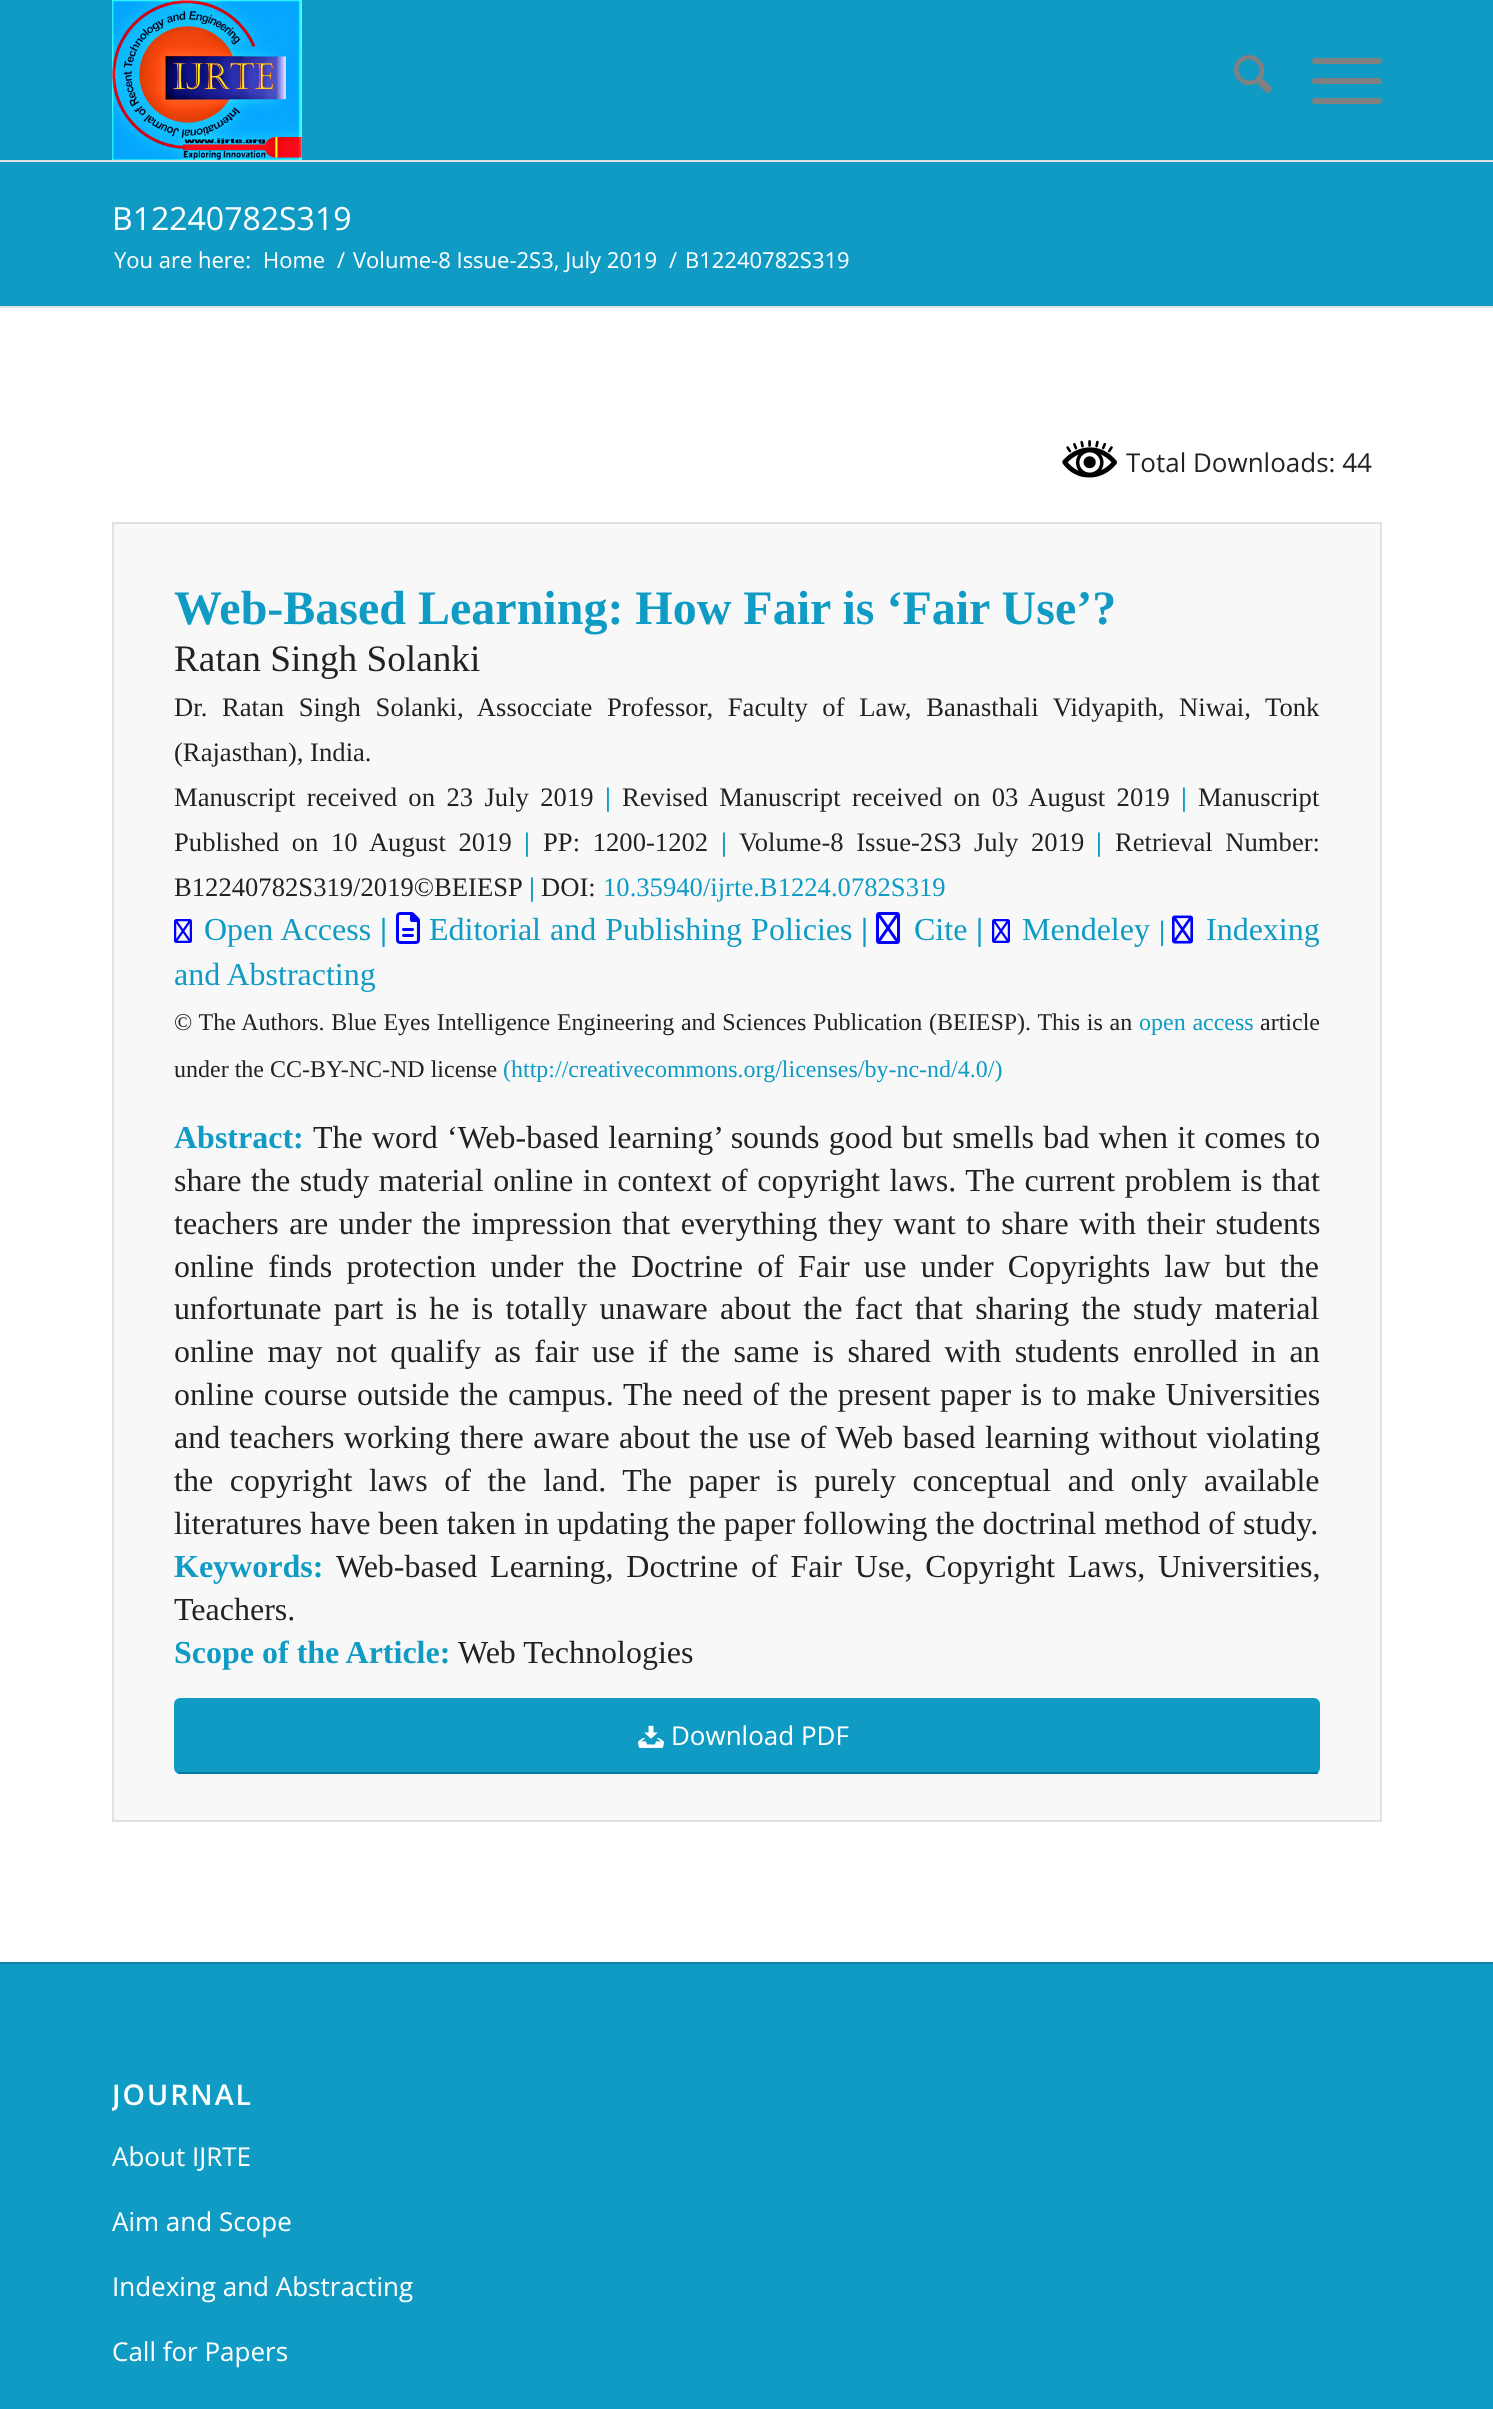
<!DOCTYPE html>
<meta charset="utf-8">
<style>body { margin: 0 } canvas { display: block }</style>
<canvas id="canvas" width="1493" height="2409"></canvas>
<img id="img1" src="images/1.png" hidden>
<img id="img2" src="images/2.png" hidden>
<img id="img3" src="images/3.png" hidden>
<img id="img4" src="images/4.png" hidden>
<img id="img5" src="images/5.png" hidden>
<img id="img6" src="images/6.png" hidden>
<img id="img7" src="images/7.png" hidden>
<img id="img8" src="images/8.png" hidden>
<script>
window.onload = function () {
    const canvas = document.getElementById('canvas');
    const context = canvas.getContext('2d');
    context.miterLimit = 4;
    context.fontKerning = 'normal';

    context.fillStyle = 'rgb(16, 155, 197)';
    context.fillRect(0, 0, 1493, 2409);
    context.fillStyle = 'rgb(225, 225, 225)';
    context.fillRect(0, 160, 1493, 2);
    context.drawImage(document.getElementById('img1'), 112, 0, 190, 160);
    context.drawImage(document.getElementById('img2'), 1234, 55, 38, 38);
    context.fillStyle = 'rgb(128, 128, 128)';
    context.beginPath();
    context.roundRect(1312, 78, 70, 6, 3);
    context.fill();
    context.beginPath();
    context.roundRect(1312, 58, 70, 6, 3);
    context.fill();
    context.beginPath();
    context.roundRect(1312, 98, 70, 6, 3);
    context.fill();
    context.fillStyle = 'rgb(255, 255, 255)';
    context.fillRect(0, 308, 1493, 1654);
    context.fillStyle = 'rgb(225, 225, 225)';
    context.fillRect(0, 306, 1493, 2);
    context.drawImage(document.getElementById('img3'), 1062, 440, 55, 38);
    context.fillStyle = 'rgb(248, 248, 248)';
    context.beginPath();
    context.rect(113, 523, 1268, 1298);
    context.fill();
    context.strokeStyle = 'rgb(225, 225, 225)';
    context.lineWidth = 2;
    context.stroke();
    context.drawImage(document.getElementById('img4'), 1172, 915, 21, 29);
    context.drawImage(document.getElementById('img5'), 174, 919, 18, 24);
    context.drawImage(document.getElementById('img6'), 396, 912, 24, 32);
    context.drawImage(document.getElementById('img7'), 876, 912, 24, 32);
    context.drawImage(document.getElementById('img5'), 992, 919, 18, 24);
    context.fillStyle = 'rgb(16, 155, 197)';
    context.beginPath();
    context.roundRect(174, 1698, 1146, 76, 6);
    context.fill();
    context.fillStyle = 'rgb(0, 121, 163)';
    context.fillRect(178, 1772, 1140, 2);
    context.drawImage(document.getElementById('img8'), 638, 1725, 26, 23);
    context.fillStyle = 'rgb(15, 129, 161)';
    context.fillRect(0, 1962, 1493, 2);
    context.font = '32px Open Sans';
    context.fillStyle = 'rgb(255, 255, 255)';
    context.fillText('B12240782S319', 112, 230);
    context.font = '22px Open Sans';
    context.fillText('You are here:', 114, 268);
    context.fillText('Home', 263, 268);
    context.fillText('/', 337, 268);
    context.fillText('Volume-8 Issue-2S3, July 2019', 353, 268);
    context.fillText('/', 669, 268);
    context.fillText('B12240782S319', 685, 268);
    context.font = '26px Open Sans';
    context.fillStyle = 'rgb(34, 34, 34)';
    context.fillText('Total Downloads: 44', 1126, 472);
    context.font = 'bold 48px Liberation Serif';
    context.fillStyle = 'rgb(16, 155, 197)';
    context.fillText('Web-Based Learning: How Fair is ‘Fair Use’?', 174, 624);
    context.font = '37.25px Liberation Serif';
    context.fillStyle = 'rgb(34, 34, 34)';
    context.fillText('Ratan Singh Solanki', 174, 671);
    context.wordSpacing = '8px';
    context.font = '26.65px Liberation Serif';
    context.fillText('Dr. Ratan Singh Solanki, Assocciate Professor, Faculty of Law, Banasthali Vidyapith, Niwai, Tonk', 174, 716);
    context.wordSpacing = '0px';
    context.fillText('(Rajasthan), India.', 174, 761);
    context.wordSpacing = '4.75px';
    context.fillText('Manuscript received on 23 July 2019', 174, 806);
    context.wordSpacing = '0px';
    context.font = 'bold 26.65px Liberation Serif';
    context.fillStyle = 'rgb(16, 155, 197)';
    context.fillText('|', 605, 806);
    context.wordSpacing = '4.75px';
    context.font = '26.65px Liberation Serif';
    context.fillStyle = 'rgb(34, 34, 34)';
    context.fillText('Revised Manuscript received on 03 August 2019', 622, 806);
    context.wordSpacing = '0px';
    context.font = 'bold 26.65px Liberation Serif';
    context.fillStyle = 'rgb(16, 155, 197)';
    context.fillText('|', 1181, 806);
    context.font = '26.65px Liberation Serif';
    context.fillStyle = 'rgb(34, 34, 34)';
    context.fillText('Manuscript', 1198, 806);
    context.wordSpacing = '6px';
    context.fillText('Published on 10 August 2019', 174, 851);
    context.wordSpacing = '0px';
    context.font = 'bold 26.65px Liberation Serif';
    context.fillStyle = 'rgb(16, 155, 197)';
    context.fillText('|', 524, 851);
    context.wordSpacing = '6px';
    context.font = '26.65px Liberation Serif';
    context.fillStyle = 'rgb(34, 34, 34)';
    context.fillText('PP: 1200-1202', 543, 851);
    context.wordSpacing = '0px';
    context.font = 'bold 26.65px Liberation Serif';
    context.fillStyle = 'rgb(16, 155, 197)';
    context.fillText('|', 721, 851);
    context.wordSpacing = '6px';
    context.font = '26.65px Liberation Serif';
    context.fillStyle = 'rgb(34, 34, 34)';
    context.fillText('Volume-8 Issue-2S3 July 2019', 739, 851);
    context.wordSpacing = '0px';
    context.font = 'bold 26.65px Liberation Serif';
    context.fillStyle = 'rgb(16, 155, 197)';
    context.fillText('|', 1096, 851);
    context.wordSpacing = '6px';
    context.font = '26.65px Liberation Serif';
    context.fillStyle = 'rgb(34, 34, 34)';
    context.fillText('Retrieval Number:', 1115, 851);
    context.wordSpacing = '0px';
    context.fillText('B12240782S319/2019©BEIESP', 174, 896);
    context.font = 'bold 26.65px Liberation Serif';
    context.fillStyle = 'rgb(16, 155, 197)';
    context.fillText('|', 529, 896);
    context.font = '26.65px Liberation Serif';
    context.fillStyle = 'rgb(34, 34, 34)';
    context.fillText('DOI:', 541, 896);
    context.fillStyle = 'rgb(16, 155, 197)';
    context.fillText('10.35940/ijrte.B1224.0782S319', 603, 896);
    context.font = 'bold 28px Liberation Serif';
    context.fillText('|', 1159, 940);
    context.font = '32px Liberation Serif';
    context.fillText('Indexing', 1206, 940);
    context.fillText('and Abstracting', 174, 985);
    context.wordSpacing = '1px';
    context.fillText('Open Access', 204, 940);
    context.wordSpacing = '0px';
    context.font = 'bold 32px Liberation Serif';
    context.fillText('|', 380, 940);
    context.wordSpacing = '1px';
    context.font = '32px Liberation Serif';
    context.fillText('Editorial and Publishing Policies', 429, 940);
    context.wordSpacing = '0px';
    context.font = 'bold 32px Liberation Serif';
    context.fillText('|', 861, 940);
    context.font = '32px Liberation Serif';
    context.fillText('Cite', 914, 940);
    context.font = 'bold 32px Liberation Serif';
    context.fillText('|', 976, 940);
    context.font = '32px Liberation Serif';
    context.fillText('Mendeley', 1022, 940);
    context.wordSpacing = '0.75px';
    context.font = '24px Liberation Serif';
    context.fillStyle = 'rgb(34, 34, 34)';
    context.fillText('© The Authors. Blue Eyes Intelligence Engineering and Sciences Publication (BEIESP). This is an', 174, 1030);
    context.fillStyle = 'rgb(16, 155, 197)';
    context.fillText('open access', 1139, 1030);
    context.wordSpacing = '0px';
    context.fillStyle = 'rgb(34, 34, 34)';
    context.fillText('article', 1260, 1030);
    context.fillText('under the CC-BY-NC-ND license', 174, 1077);
    context.fillStyle = 'rgb(16, 155, 197)';
    context.fillText('(http://creativecommons.org/licenses/by-nc-nd/4.0/)', 503, 1077);
    context.font = 'bold 32px Liberation Serif';
    context.fillText('Abstract:', 174, 1148);
    context.wordSpacing = '1.25px';
    context.font = '32px Liberation Serif';
    context.fillStyle = 'rgb(34, 34, 34)';
    context.fillText('The word ‘Web-based learning’ sounds good but smells bad when it comes to', 313, 1148);
    context.wordSpacing = '1.6px';
    context.fillText('share the study material online in context of copyright laws. The current problem is that', 174, 1191);
    context.wordSpacing = '2.4px';
    context.fillText('teachers are under the impression that everything they want to share with their students', 174, 1234);
    context.wordSpacing = '6.25px';
    context.fillText('online finds protection under the Doctrine of Fair use under Copyrights law but the', 174, 1277);
    context.wordSpacing = '4.25px';
    context.fillText('unfortunate part is he is totally unaware about the fact that sharing the study material', 174, 1319);
    context.wordSpacing = '5.4px';
    context.fillText('online may not qualify as fair use if the same is shared with students enrolled in an', 174, 1362);
    context.wordSpacing = '1.75px';
    context.fillText('online course outside the campus. The need of the present paper is to make Universities', 174, 1405);
    context.wordSpacing = '1.4px';
    context.fillText('and teachers working there aware about the use of Web based learning without violating', 174, 1448);
    context.wordSpacing = '8.6px';
    context.fillText('the copyright laws of the land. The paper is purely conceptual and only available', 174, 1491);
    context.wordSpacing = '0px';
    context.fillText('literatures have been taken in updating the paper following the doctrinal method of study.', 174, 1534);
    context.font = 'bold 32px Liberation Serif';
    context.fillStyle = 'rgb(16, 155, 197)';
    context.fillText('Keywords:', 174, 1577);
    context.wordSpacing = '4.75px';
    context.font = '32px Liberation Serif';
    context.fillStyle = 'rgb(34, 34, 34)';
    context.fillText('Web-based Learning, Doctrine of Fair Use, Copyright Laws, Universities,', 336, 1577);
    context.wordSpacing = '0px';
    context.fillText('Teachers.', 174, 1620);
    context.font = 'bold 32px Liberation Serif';
    context.fillStyle = 'rgb(16, 155, 197)';
    context.fillText('Scope of the Article:', 174, 1663);
    context.font = '32px Liberation Serif';
    context.fillStyle = 'rgb(34, 34, 34)';
    context.fillText('Web Technologies', 458, 1663);
    context.font = '26px Open Sans';
    context.fillStyle = 'rgb(255, 255, 255)';
    context.fillText('Download PDF', 671, 1745);
    context.save();
    context.beginPath();
    context.rect(112, 2054, 1270, 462);
    context.clip();
    context.letterSpacing = '2px';
    context.font = '600 28.5px Open Sans';
    context.fillText('JOURNAL', 112, 2105);
    context.restore();
    context.fillText('About IJRTE', 112, 2166);
    context.fillText('Aim and Scope', 112, 2231);
    context.fillText('Indexing and Abstracting', 112, 2296);
    context.fillText('Call for Papers', 112, 2361);
};
</script>
